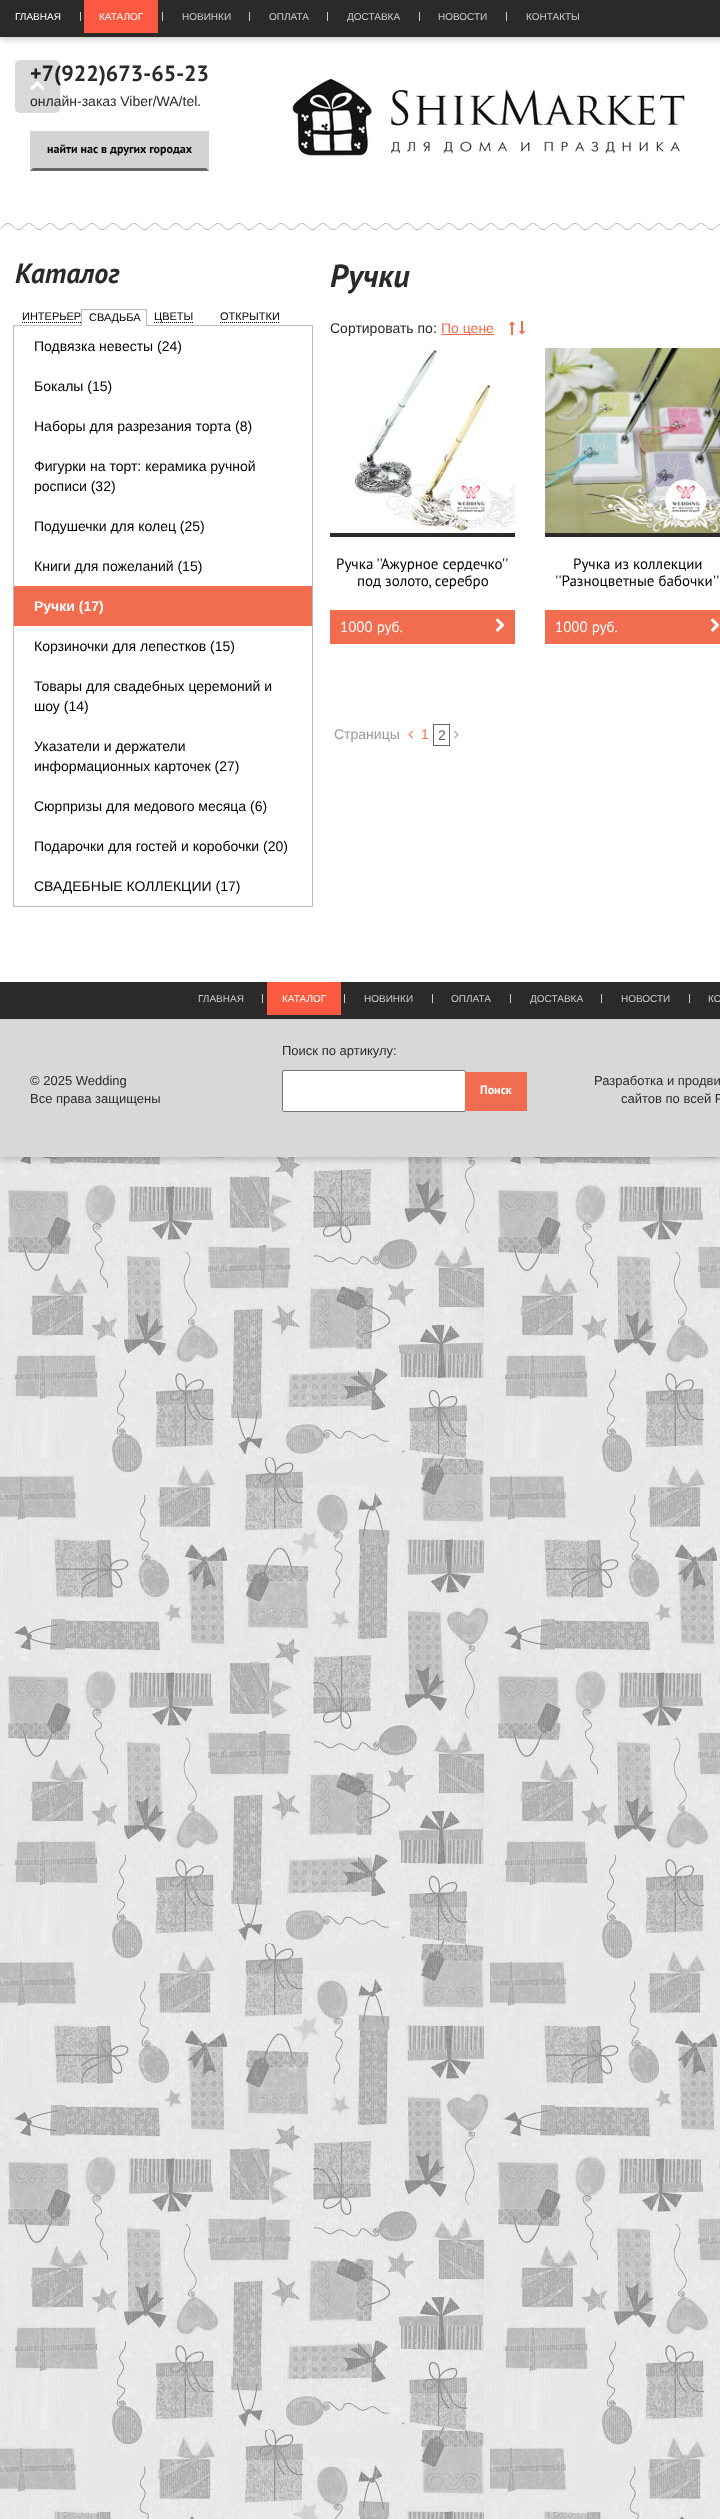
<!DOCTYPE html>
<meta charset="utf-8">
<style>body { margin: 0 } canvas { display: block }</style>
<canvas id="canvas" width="720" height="2519"></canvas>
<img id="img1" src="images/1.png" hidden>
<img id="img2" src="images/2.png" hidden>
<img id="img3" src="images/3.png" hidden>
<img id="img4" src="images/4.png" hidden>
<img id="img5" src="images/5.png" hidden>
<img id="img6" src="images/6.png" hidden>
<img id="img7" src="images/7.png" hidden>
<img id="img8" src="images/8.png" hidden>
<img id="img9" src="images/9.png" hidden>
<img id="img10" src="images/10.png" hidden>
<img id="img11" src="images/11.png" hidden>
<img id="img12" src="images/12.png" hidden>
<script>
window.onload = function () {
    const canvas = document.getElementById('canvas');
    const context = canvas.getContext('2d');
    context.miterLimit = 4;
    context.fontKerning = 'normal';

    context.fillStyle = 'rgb(255, 255, 255)';
    context.fillRect(0, 0, 720, 2519);
    context.drawImage(document.getElementById('img1'), 0, 1157, 720, 1362);
    context.fillStyle = 'rgba(0, 0, 0, 0.35)';
    context.filter = 'blur(5px)';
    context.beginPath();
    context.rect(0, 0, 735, 1157);
    context.fill();
    context.filter = 'none';
    context.fillStyle = 'rgb(255, 255, 255)';
    context.fillRect(0, 37, 720, 945);
    context.drawImage(document.getElementById('img2'), 0, 223, 720, 7);
    context.fillStyle = 'rgba(0, 0, 0, 0.35)';
    context.filter = 'blur(5px)';
    context.beginPath();
    context.rect(0, 0, 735, 37);
    context.fill();
    context.filter = 'none';
    context.fillStyle = 'rgb(43, 42, 41)';
    context.fillRect(0, 0, 720, 37);
    context.fillStyle = 'rgb(206, 206, 206)';
    context.fillRect(80, 12, 1, 9);
    context.fillStyle = 'rgb(251, 89, 64)';
    context.fillRect(84, 0, 74, 33);
    context.fillStyle = 'rgb(206, 206, 206)';
    context.fillRect(162, 12, 1, 9);
    context.fillRect(249, 12, 1, 9);
    context.fillRect(327, 12, 1, 9);
    context.fillRect(419, 12, 1, 9);
    context.fillRect(506, 12, 1, 9);
    context.fillStyle = 'rgb(211, 211, 211)';
    context.fillRect(30, 131, 179, 40);
    context.fillStyle = 'rgb(105, 105, 105)';
    context.beginPath();
    context.moveTo(209, 171);
    context.lineTo(30, 171);
    context.lineTo(33, 168);
    context.lineTo(206, 168);
    context.closePath();
    context.fill();
    context.drawImage(document.getElementById('img3'), 290, 78, 395, 78);
    context.beginPath();
    context.moveTo(22, 322.5);
    context.lineTo(81, 322.5);
    context.strokeStyle = 'rgb(0, 0, 0)';
    context.setLineDash([1, 1]);
    context.stroke();
    context.beginPath();
    context.moveTo(154, 322.5);
    context.lineTo(193, 322.5);
    context.stroke();
    context.beginPath();
    context.moveTo(220, 322.5);
    context.lineTo(280, 322.5);
    context.stroke();
    context.strokeStyle = 'rgb(186, 186, 186)';
    context.setLineDash([]);
    context.strokeRect(13.5, 325.5, 299, 581);
    context.fillStyle = 'rgb(255, 255, 255)';
    context.fillRect(82, 325, 64, 1);
    context.fillStyle = 'rgb(186, 186, 186)';
    context.fillRect(81, 309, 66, 1);
    context.fillRect(146, 309, 1, 17);
    context.fillRect(81, 309, 1, 17);
    context.fillStyle = 'rgb(242, 108, 79)';
    context.fillRect(14, 586, 298, 40);
    context.fillRect(441, 334, 53, 1);
    context.drawImage(document.getElementById('img4'), 509, 321, 6, 14);
    context.drawImage(document.getElementById('img5'), 519, 321, 6, 14);
    context.fillStyle = 'rgb(43, 42, 41)';
    context.fillRect(330, 533, 185, 4);
    context.drawImage(document.getElementById('img6'), 353, 348, 162, 185);
    context.fillStyle = 'rgb(242, 108, 79)';
    context.fillRect(330, 610, 185, 34);
    context.drawImage(document.getElementById('img7'), 496, 618, 9, 14);
    context.fillStyle = 'rgb(43, 42, 41)';
    context.fillRect(545, 533, 175, 4);
    context.drawImage(document.getElementById('img8'), 545, 348, 175, 185);
    context.fillStyle = 'rgb(242, 108, 79)';
    context.fillRect(545, 610, 175, 34);
    context.drawImage(document.getElementById('img7'), 711, 618, 9, 14);
    context.drawImage(document.getElementById('img9'), 408, 730, 5, 9);
    context.strokeStyle = 'rgb(102, 102, 102)';
    context.strokeRect(433.5, 724.5, 16, 21);
    context.drawImage(document.getElementById('img10'), 454, 730, 5, 9);
    context.fillStyle = 'rgb(216, 216, 216)';
    context.fillRect(0, 1019, 720, 138);
    context.fillStyle = 'rgb(43, 42, 41)';
    context.fillRect(0, 982, 720, 37);
    context.fillStyle = 'rgb(206, 206, 206)';
    context.fillRect(262, 994, 1, 9);
    context.fillStyle = 'rgb(251, 89, 64)';
    context.fillRect(267, 982, 74, 33);
    context.fillStyle = 'rgb(206, 206, 206)';
    context.fillRect(344, 994, 1, 9);
    context.fillRect(432, 994, 1, 9);
    context.fillRect(510, 994, 1, 9);
    context.fillRect(601, 994, 1, 9);
    context.fillRect(689, 994, 1, 9);
    context.fillStyle = 'rgb(255, 255, 255)';
    context.beginPath();
    context.roundRect(282.5, 1070.5, 183, 41, 1.5);
    context.fill();
    context.strokeStyle = 'rgb(118, 118, 118)';
    context.stroke();
    context.fillStyle = 'rgb(242, 108, 79)';
    context.fillRect(465, 1072, 62, 39);
    context.font = '10px Liberation Sans';
    context.fillStyle = 'rgb(255, 255, 255)';
    context.fillText('ГЛАВНАЯ', 15, 20);
    context.fillText('КАТАЛОГ', 99, 20);
    context.fillStyle = 'rgb(206, 206, 206)';
    context.fillText('НОВИНКИ', 182, 20);
    context.fillText('ОПЛАТА', 269, 20);
    context.fillText('ДОСТАВКА', 347, 20);
    context.fillText('НОВОСТИ', 438, 20);
    context.fillText('КОНТАКТЫ', 526, 20);
    context.font = 'bold 22px PT Sans';
    context.fillStyle = 'rgb(43, 42, 41)';
    context.fillText('+7(922)673-65-23', 30, 81);
    context.font = '14px Liberation Sans';
    context.fillText('онлайн-заказ Viber/WA/tel.', 30, 106);
    context.font = 'bold 12px PT Sans';
    context.fillStyle = 'rgb(0, 0, 0)';
    context.fillText('найти нас в других городах', 47, 153);
    context.font = 'italic bold 28px PT Sans';
    context.fillStyle = 'rgb(43, 42, 41)';
    context.fillText('Каталог', 15, 283);
    context.font = '11px Liberation Sans';
    context.fillStyle = 'rgb(0, 0, 0)';
    context.fillText('ИНТЕРЬЕР', 22, 320);
    context.fillText('ЦВЕТЫ', 154, 320);
    context.fillText('ОТКРЫТКИ', 220, 320);
    context.fillText('СВАДЬБА', 89, 321);
    context.font = '14px Liberation Sans';
    context.fillText('Подвязка невесты (24)', 34, 351);
    context.fillText('Бокалы (15)', 34, 391);
    context.fillText('Наборы для разрезания торта (8)', 34, 431);
    context.fillText('Фигурки на торт: керамика ручной', 34, 471);
    context.fillText('росписи (32)', 34, 491);
    context.fillText('Подушечки для колец (25)', 34, 531);
    context.fillText('Книги для пожеланий (15)', 34, 571);
    context.font = 'bold 14px Liberation Sans';
    context.fillStyle = 'rgb(255, 255, 255)';
    context.fillText('Ручки (17)', 34, 611);
    context.font = '14px Liberation Sans';
    context.fillStyle = 'rgb(0, 0, 0)';
    context.fillText('Корзиночки для лепестков (15)', 34, 651);
    context.fillText('Товары для свадебных церемоний и', 34, 691);
    context.fillText('шоу (14)', 34, 711);
    context.fillText('Указатели и держатели', 34, 751);
    context.fillText('информационных карточек (27)', 34, 771);
    context.fillText('Сюрпризы для медового месяца (6)', 34, 811);
    context.fillText('Подарочки для гостей и коробочки (20)', 34, 851);
    context.fillText('СВАДЕБНЫЕ КОЛЛЕКЦИИ (17)', 34, 891);
    context.font = 'italic bold 32px PT Sans';
    context.fillStyle = 'rgb(43, 42, 41)';
    context.fillText('Ручки', 330, 287);
    context.font = '14px Liberation Sans';
    context.fillText('Сортировать по:', 330, 333);
    context.fillStyle = 'rgb(242, 108, 79)';
    context.fillText('По цене', 441, 333);
    context.font = '15px PT Sans';
    context.fillStyle = 'rgb(0, 0, 0)';
    context.fillText('Ручка \'\'Ажурное сердечко\'\'', 336, 569);
    context.fillText('под золото, серебро', 357, 586);
    context.fillStyle = 'rgb(255, 255, 255)';
    context.fillText('1000 руб.', 340, 632);
    context.fillStyle = 'rgb(0, 0, 0)';
    context.fillText('Ручка из коллекции', 573, 569);
    context.fillText('\'\'Разноцветные бабочки\'\'', 555, 586);
    context.fillStyle = 'rgb(255, 255, 255)';
    context.fillText('1000 руб.', 555, 632);
    context.font = '14px Liberation Sans';
    context.fillStyle = 'rgb(153, 153, 153)';
    context.fillText('Страницы', 334, 739);
    context.fillStyle = 'rgb(242, 108, 79)';
    context.fillText('1', 421, 739);
    context.fillStyle = 'rgb(102, 102, 102)';
    context.fillText('2', 438, 740);
    context.font = '10px Liberation Sans';
    context.fillStyle = 'rgb(206, 206, 206)';
    context.fillText('ГЛАВНАЯ', 198, 1002);
    context.fillStyle = 'rgb(255, 255, 255)';
    context.fillText('КАТАЛОГ', 282, 1002);
    context.fillStyle = 'rgb(206, 206, 206)';
    context.fillText('НОВИНКИ', 364, 1002);
    context.fillText('ОПЛАТА', 451, 1002);
    context.fillText('ДОСТАВКА', 530, 1002);
    context.fillText('НОВОСТИ', 621, 1002);
    context.fillText('КО', 708, 1002);
    context.font = '13px Liberation Sans';
    context.fillStyle = 'rgb(43, 42, 41)';
    context.fillText('© 2025 Wedding', 30, 1085);
    context.fillText('Все права защищены', 30, 1103);
    context.fillText('Поиск по артикулу:', 282, 1055);
    context.font = 'bold 12px PT Sans';
    context.fillStyle = 'rgb(255, 255, 255)';
    context.fillText('Поиск', 480, 1094);
    context.font = '13px Liberation Sans';
    context.fillStyle = 'rgb(43, 42, 41)';
    context.fillText('Разработка и продви', 594, 1085);
    context.fillText('сайтов по всей Р', 621, 1103);
    context.drawImage(document.getElementById('img11'), 15, 60, 45, 53);
    context.drawImage(document.getElementById('img12'), 30, 81, 15, 9);
};
</script>
